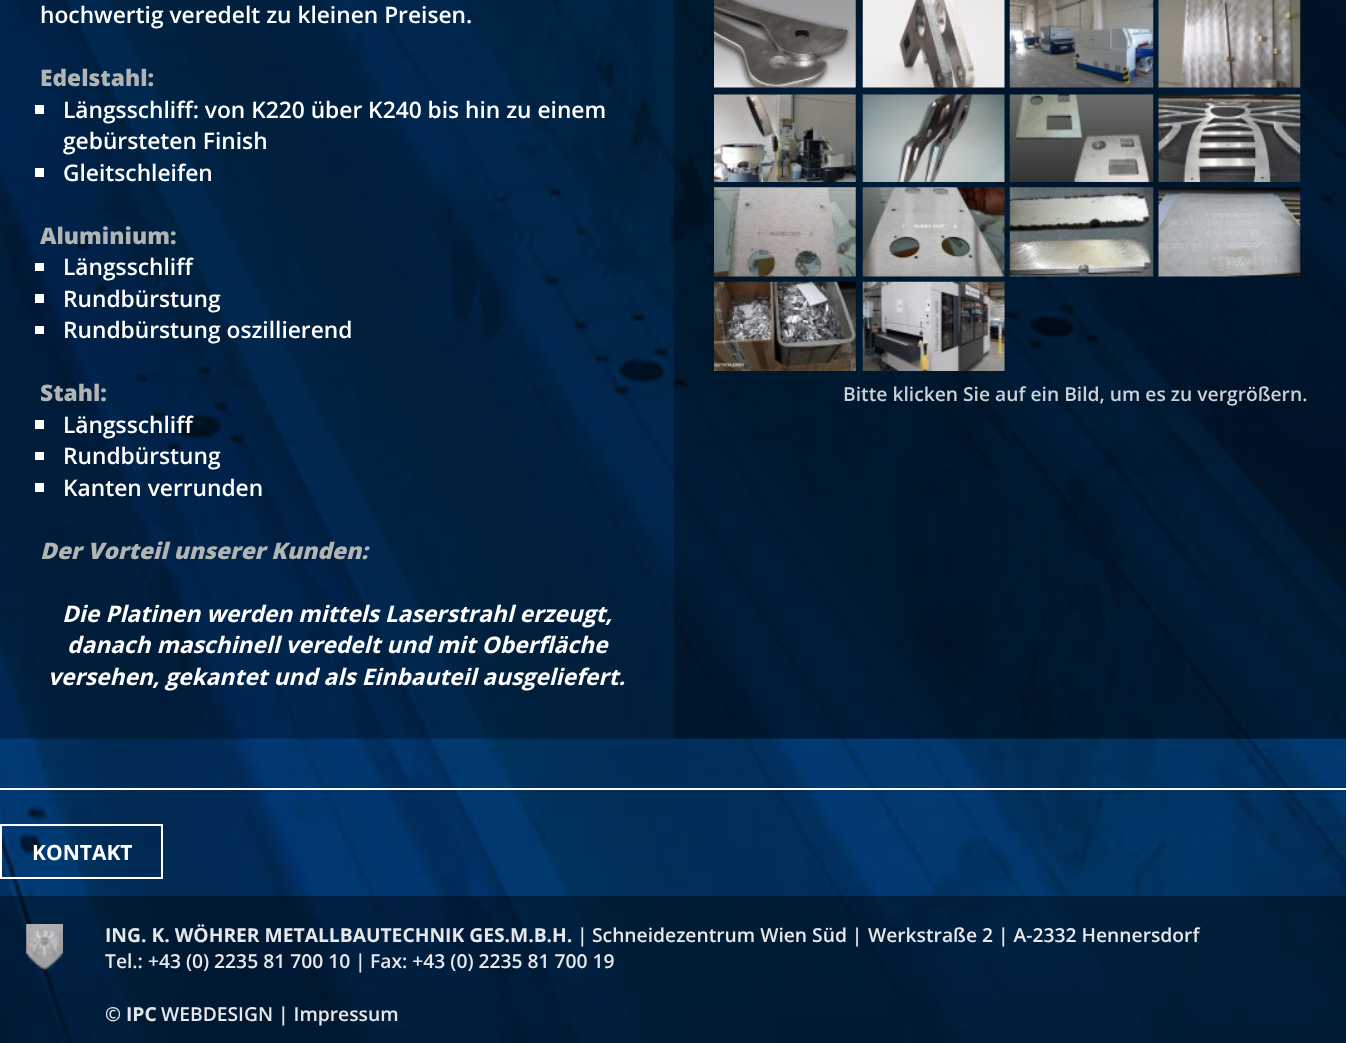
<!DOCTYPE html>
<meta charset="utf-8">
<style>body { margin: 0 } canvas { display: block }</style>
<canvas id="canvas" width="1346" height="1043"></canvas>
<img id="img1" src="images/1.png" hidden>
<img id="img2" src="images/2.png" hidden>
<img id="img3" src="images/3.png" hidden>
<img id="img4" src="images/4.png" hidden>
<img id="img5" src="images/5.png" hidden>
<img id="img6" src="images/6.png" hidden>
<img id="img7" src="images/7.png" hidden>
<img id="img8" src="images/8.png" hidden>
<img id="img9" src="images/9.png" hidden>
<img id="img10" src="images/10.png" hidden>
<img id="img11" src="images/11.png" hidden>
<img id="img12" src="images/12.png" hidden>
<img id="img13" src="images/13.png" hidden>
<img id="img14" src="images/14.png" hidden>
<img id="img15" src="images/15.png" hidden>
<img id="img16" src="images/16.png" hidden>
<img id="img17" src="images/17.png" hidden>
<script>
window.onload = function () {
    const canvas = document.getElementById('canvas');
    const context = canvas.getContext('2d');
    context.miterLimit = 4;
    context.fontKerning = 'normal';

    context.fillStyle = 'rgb(255, 255, 255)';
    context.fillRect(0, 0, 1346, 1043);
    context.drawImage(document.getElementById('img1'), 0, 0, 1346, 1043);
    context.fillRect(0, 788, 1346, 2);
    context.drawImage(document.getElementById('img2'), 0, 0, 1346, 739);
    context.fillRect(35, 105, 9, 9);
    context.fillRect(35, 168, 9, 9);
    context.fillRect(35, 263, 9, 8);
    context.fillRect(35, 294, 9, 9);
    context.fillRect(35, 326, 9, 8);
    context.fillRect(35, 420, 9, 9);
    context.fillRect(35, 452, 9, 8);
    context.fillRect(35, 483, 9, 9);
    context.drawImage(document.getElementById('img3'), 714, 0, 142, 88);
    context.drawImage(document.getElementById('img4'), 862, 0, 143, 88);
    context.drawImage(document.getElementById('img5'), 1009, 0, 145, 88);
    context.drawImage(document.getElementById('img6'), 1158, 0, 143, 88);
    context.drawImage(document.getElementById('img7'), 714, 94, 142, 88);
    context.drawImage(document.getElementById('img8'), 862, 94, 143, 88);
    context.drawImage(document.getElementById('img9'), 1009, 94, 145, 88);
    context.drawImage(document.getElementById('img10'), 1158, 94, 143, 88);
    context.drawImage(document.getElementById('img11'), 714, 187, 142, 90);
    context.drawImage(document.getElementById('img12'), 862, 187, 143, 90);
    context.drawImage(document.getElementById('img13'), 1009, 187, 145, 90);
    context.drawImage(document.getElementById('img14'), 1158, 187, 143, 90);
    context.drawImage(document.getElementById('img15'), 714, 281, 142, 90);
    context.drawImage(document.getElementById('img16'), 862, 281, 143, 90);
    context.strokeStyle = 'rgb(255, 255, 255)';
    context.lineWidth = 2;
    context.strokeRect(1, 825, 161, 53);
    context.fillStyle = 'rgba(0, 0, 0, 0.4)';
    context.fillRect(0, 896, 1346, 147);
    context.drawImage(document.getElementById('img17'), 26, 924, 37, 46);
    context.font = '600 22.75px Open Sans';
    context.fillStyle = 'rgb(255, 255, 255)';
    context.fillText('hochwertig veredelt zu kleinen Preisen.', 40, 23);
    context.font = '800 22.75px Open Sans';
    context.fillStyle = 'rgb(176, 180, 178)';
    context.fillText('Edelstahl:', 40, 86);
    context.font = '600 22.75px Open Sans';
    context.fillStyle = 'rgb(255, 255, 255)';
    context.fillText('Längsschliff: von K220 über K240 bis hin zu einem', 63, 118);
    context.fillText('gebürsteten Finish', 63, 149);
    context.fillText('Gleitschleifen', 63, 181);
    context.font = '800 22.75px Open Sans';
    context.fillStyle = 'rgb(176, 180, 178)';
    context.fillText('Aluminium:', 40, 244);
    context.font = '600 22.75px Open Sans';
    context.fillStyle = 'rgb(255, 255, 255)';
    context.fillText('Längsschliff', 63, 275);
    context.fillText('Rundbürstung', 63, 307);
    context.fillText('Rundbürstung oszillierend', 63, 338);
    context.font = '800 22.75px Open Sans';
    context.fillStyle = 'rgb(176, 180, 178)';
    context.fillText('Stahl:', 40, 401);
    context.font = '600 22.75px Open Sans';
    context.fillStyle = 'rgb(255, 255, 255)';
    context.fillText('Längsschliff', 63, 433);
    context.fillText('Rundbürstung', 63, 464);
    context.fillText('Kanten verrunden', 63, 496);
    context.font = 'italic 800 22.75px Open Sans';
    context.fillStyle = 'rgb(176, 180, 178)';
    context.fillText('Der Vorteil unserer Kunden:', 40, 559);
    context.font = 'italic bold 22.75px Open Sans';
    context.fillStyle = 'rgb(255, 255, 255)';
    context.fillText('Die Platinen werden mittels Laserstrahl erzeugt,', 62, 622);
    context.fillText('danach maschinell veredelt und mit Oberfläche', 67, 653);
    context.fillText('versehen, gekantet und als Einbauteil ausgeliefert.', 48, 685);
    context.font = '600 19.25px Open Sans';
    context.fillStyle = 'rgb(204, 209, 213)';
    context.fillText('Bitte klicken Sie auf ein Bild, um es zu vergrößern.', 843, 401);
    context.font = 'bold 21px Open Sans';
    context.fillStyle = 'rgb(255, 255, 255)';
    context.fillText('KONTAKT', 32, 860);
    context.font = 'bold 19.25px Open Sans';
    context.fillStyle = 'rgb(230, 232, 235)';
    context.fillText('ING. K. WÖHRER METALLBAUTECHNIK GES.M.B.H.', 105, 942);
    context.font = '600 19.25px Open Sans';
    context.fillText('|', 577, 942);
    context.fillText('Schneidezentrum Wien Süd |', 592, 942);
    context.fillText('Werkstraße 2 | A-2332 Hennersdorf', 868, 942);
    context.fillText('Tel.: +43 (0) 2235 81 700 10', 105, 968);
    context.fillText('|', 355, 968);
    context.fillText('Fax: +43 (0) 2235 81 700 19', 370, 968);
    context.fillText('©', 105, 1021);
    context.font = 'bold 19.25px Open Sans';
    context.fillText('IPC', 126, 1021);
    context.font = '600 19.25px Open Sans';
    context.fillText('WEBDESIGN | Impressum', 161, 1021);
};
</script>
